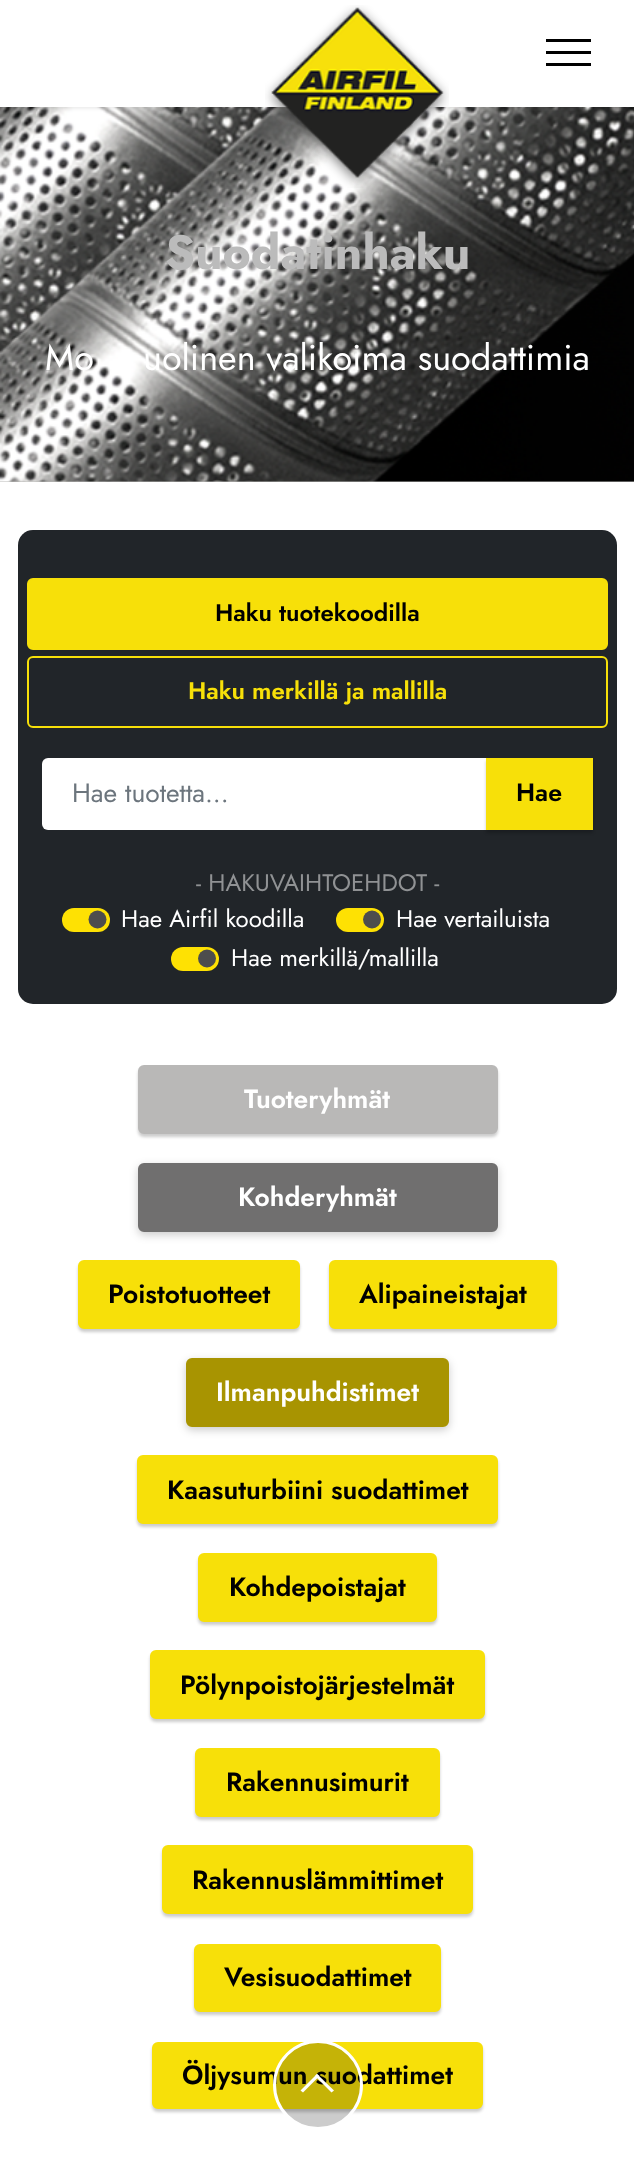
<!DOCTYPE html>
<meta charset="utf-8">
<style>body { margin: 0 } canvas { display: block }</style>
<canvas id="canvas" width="634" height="2181"></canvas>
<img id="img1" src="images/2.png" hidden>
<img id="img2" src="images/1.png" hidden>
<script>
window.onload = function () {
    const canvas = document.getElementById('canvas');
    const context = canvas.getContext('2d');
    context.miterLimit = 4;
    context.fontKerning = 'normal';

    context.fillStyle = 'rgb(255, 255, 255)';
    context.fillRect(0, 0, 634, 2181);
    context.fillStyle = 'rgb(185, 184, 183)';
    context.fillRect(0, 481, 634, 1);
    context.drawImage(document.getElementById('img1'), 0, 107, 634, 375);
    context.fillStyle = 'rgba(0, 0, 0, 0.1)';
    context.filter = 'blur(2px)';
    context.beginPath();
    context.rect(0, 2, 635, 106);
    context.fill();
    context.filter = 'none';
    context.fillStyle = 'rgb(255, 255, 255)';
    context.fillRect(0, 0, 634, 107);
    context.drawImage(document.getElementById('img2'), 265, 5, 184, 183);
    context.fillStyle = 'rgb(0, 0, 0)';
    context.fillRect(546, 39, 45, 3);
    context.fillRect(546, 51, 45, 3);
    context.fillRect(546, 63, 45, 3);
    context.fillStyle = 'rgb(33, 37, 41)';
    context.beginPath();
    context.roundRect(18, 530, 599, 474, 15);
    context.fill();
    context.fillStyle = 'rgb(247, 224, 9)';
    context.beginPath();
    context.roundRect(28, 579, 579, 70, 5);
    context.fill();
    context.strokeStyle = 'rgb(247, 224, 9)';
    context.lineWidth = 2;
    context.stroke();
    context.beginPath();
    context.roundRect(28, 657, 579, 70, 5);
    context.stroke();
    context.fillStyle = 'rgb(255, 255, 255)';
    context.beginPath();
    context.roundRect(42, 758, 446, 72, [6, 0, 0, 6]);
    context.fill();
    context.fillStyle = 'rgba(0, 0, 0, 0.2)';
    context.filter = 'blur(1.5px)';
    context.beginPath();
    context.rect(486, 761, 107, 72);
    context.fill();
    context.filter = 'none';
    context.fillStyle = 'rgb(247, 224, 9)';
    context.fillRect(486, 758, 107, 72);
    context.fillStyle = 'rgb(254, 225, 3)';
    context.beginPath();
    context.roundRect(62, 908, 48, 24, 12);
    context.fill();
    context.fillStyle = 'rgb(77, 77, 77)';
    context.beginPath();
    context.arc(97.5, 919.5, 9, 0, 2 * Math.PI);
    context.fill();
    context.fillStyle = 'rgb(254, 225, 3)';
    context.beginPath();
    context.roundRect(336, 908, 48, 24, 12);
    context.fill();
    context.fillStyle = 'rgb(77, 77, 77)';
    context.beginPath();
    context.arc(372, 919.5, 9, 0, 2 * Math.PI);
    context.fill();
    context.fillStyle = 'rgb(254, 225, 3)';
    context.beginPath();
    context.roundRect(171, 947, 48, 24, 12);
    context.fill();
    context.fillStyle = 'rgb(77, 77, 77)';
    context.beginPath();
    context.arc(207, 958.5, 9, 0, 2 * Math.PI);
    context.fill();
    context.fillStyle = 'rgba(0, 0, 0, 0.2)';
    context.filter = 'blur(1.5px)';
    context.beginPath();
    context.roundRect(138, 1068, 360, 69, 6);
    context.fill();
    context.filter = 'none';
    context.fillStyle = 'rgb(185, 184, 183)';
    context.beginPath();
    context.roundRect(139, 1066, 358, 67, 5);
    context.fill();
    context.strokeStyle = 'rgb(185, 184, 183)';
    context.stroke();
    context.fillStyle = 'rgba(0, 0, 0, 0.2)';
    context.filter = 'blur(4px)';
    context.beginPath();
    context.roundRect(138, 1166, 360, 69, 6);
    context.fill();
    context.filter = 'none';
    context.fillStyle = 'rgb(112, 111, 111)';
    context.beginPath();
    context.roundRect(139, 1164, 358, 67, 5);
    context.fill();
    context.strokeStyle = 'rgb(112, 111, 111)';
    context.stroke();
    context.fillStyle = 'rgba(0, 0, 0, 0.2)';
    context.filter = 'blur(1.5px)';
    context.beginPath();
    context.roundRect(78, 1263, 222, 69, 6);
    context.fill();
    context.filter = 'none';
    context.fillStyle = 'rgb(247, 224, 9)';
    context.beginPath();
    context.roundRect(79, 1261, 220, 67, 5);
    context.fill();
    context.strokeStyle = 'rgb(247, 224, 9)';
    context.stroke();
    context.fillStyle = 'rgba(0, 0, 0, 0.2)';
    context.filter = 'blur(1.5px)';
    context.beginPath();
    context.roundRect(329, 1263, 228, 69, 6);
    context.fill();
    context.filter = 'none';
    context.fillStyle = 'rgb(247, 224, 9)';
    context.beginPath();
    context.roundRect(330, 1261, 226, 67, 5);
    context.fill();
    context.stroke();
    context.fillStyle = 'rgba(0, 0, 0, 0.2)';
    context.filter = 'blur(4px)';
    context.beginPath();
    context.roundRect(186, 1361, 263, 69, 6);
    context.fill();
    context.filter = 'none';
    context.fillStyle = 'rgb(168, 148, 1)';
    context.beginPath();
    context.roundRect(187, 1359, 261, 67, 5);
    context.fill();
    context.strokeStyle = 'rgb(168, 148, 1)';
    context.stroke();
    context.fillStyle = 'rgba(0, 0, 0, 0.2)';
    context.filter = 'blur(1.5px)';
    context.beginPath();
    context.roundRect(137, 1458, 361, 69, 6);
    context.fill();
    context.filter = 'none';
    context.fillStyle = 'rgb(247, 224, 9)';
    context.beginPath();
    context.roundRect(138, 1456, 359, 67, 5);
    context.fill();
    context.strokeStyle = 'rgb(247, 224, 9)';
    context.stroke();
    context.fillStyle = 'rgba(0, 0, 0, 0.2)';
    context.filter = 'blur(1.5px)';
    context.beginPath();
    context.roundRect(198, 1556, 239, 69, 6);
    context.fill();
    context.filter = 'none';
    context.fillStyle = 'rgb(247, 224, 9)';
    context.beginPath();
    context.roundRect(199, 1554, 237, 67, 5);
    context.fill();
    context.stroke();
    context.fillStyle = 'rgba(0, 0, 0, 0.2)';
    context.filter = 'blur(1.5px)';
    context.beginPath();
    context.roundRect(150, 1653, 335, 69, 6);
    context.fill();
    context.filter = 'none';
    context.fillStyle = 'rgb(247, 224, 9)';
    context.beginPath();
    context.roundRect(151, 1651, 333, 67, 5);
    context.fill();
    context.stroke();
    context.fillStyle = 'rgba(0, 0, 0, 0.2)';
    context.filter = 'blur(1.5px)';
    context.beginPath();
    context.roundRect(195, 1751, 245, 69, 6);
    context.fill();
    context.filter = 'none';
    context.fillStyle = 'rgb(247, 224, 9)';
    context.beginPath();
    context.roundRect(196, 1749, 243, 67, 5);
    context.fill();
    context.stroke();
    context.fillStyle = 'rgba(0, 0, 0, 0.2)';
    context.filter = 'blur(1.5px)';
    context.beginPath();
    context.roundRect(162, 1848, 311, 69, 6);
    context.fill();
    context.filter = 'none';
    context.fillStyle = 'rgb(247, 224, 9)';
    context.beginPath();
    context.roundRect(163, 1846, 309, 67, 5);
    context.fill();
    context.stroke();
    context.fillStyle = 'rgba(0, 0, 0, 0.2)';
    context.filter = 'blur(1.5px)';
    context.beginPath();
    context.roundRect(194, 1947, 247, 68, 6);
    context.fill();
    context.filter = 'none';
    context.fillStyle = 'rgb(247, 224, 9)';
    context.beginPath();
    context.roundRect(195, 1945, 245, 66, 5);
    context.fill();
    context.stroke();
    context.fillStyle = 'rgba(0, 0, 0, 0.2)';
    context.filter = 'blur(1.5px)';
    context.beginPath();
    context.roundRect(152, 2045, 331, 67, 6);
    context.fill();
    context.filter = 'none';
    context.fillStyle = 'rgb(247, 224, 9)';
    context.beginPath();
    context.roundRect(153, 2043, 329, 65, 5);
    context.fill();
    context.stroke();
    context.font = 'bold 48px Jost';
    context.fillStyle = 'rgb(187, 187, 187)';
    context.fillText('Suodatinhaku', 165, 269);
    context.font = '36px Jost';
    context.fillStyle = 'rgb(255, 255, 255)';
    context.fillText('Mo', 45, 370);
    context.fillText('uolinen valikoima suodattimia', 143, 370);
    context.font = '600 24px Jost';
    context.fillStyle = 'rgb(0, 0, 0)';
    context.fillText('Haku tuotekoodilla', 215, 621);
    context.fillStyle = 'rgb(247, 224, 9)';
    context.fillText('Haku merkillä ja mallilla', 188, 699);
    context.font = '26.4px Jost';
    context.fillStyle = 'rgb(108, 117, 125)';
    context.fillText('Hae tuotetta...', 72, 802);
    context.font = '600 25px Jost';
    context.fillStyle = 'rgb(0, 0, 0)';
    context.fillText('Hae', 516, 801);
    context.font = '24px Jost';
    context.fillStyle = 'rgb(144, 146, 148)';
    context.fillText('- HAKUVAIHTOEHDOT -', 196, 891);
    context.fillStyle = 'rgb(255, 255, 255)';
    context.fillText('Hae Airfil koodilla', 121, 927);
    context.fillText('Hae vertailuista', 396, 927);
    context.fillText('Hae merkillä/mallilla', 231, 966);
    context.font = '600 26.4px Jost';
    context.fillText('Tuoteryhmät', 244, 1108);
    context.fillText('Kohderyhmät', 238, 1206);
    context.fillStyle = 'rgb(0, 0, 0)';
    context.fillText('Poistotuotteet', 108, 1303);
    context.fillText('Alipaineistajat', 359, 1303);
    context.fillStyle = 'rgb(255, 255, 255)';
    context.fillText('Ilmanpuhdistimet', 216, 1401);
    context.fillStyle = 'rgb(0, 0, 0)';
    context.fillText('Kaasuturbiini suodattimet', 167, 1499);
    context.fillText('Kohdepoistajat', 229, 1596);
    context.fillText('Pölynpoistojärjestelmät', 180, 1694);
    context.fillText('Rakennusimurit', 226, 1791);
    context.fillText('Rakennuslämmittimet', 192, 1889);
    context.fillText('Vesisuodattimet', 224, 1986);
    context.fillText('Öljysumun suodattimet', 182, 2084);
    context.fillStyle = 'rgba(0, 0, 0, 0.2)';
    context.beginPath();
    context.arc(318, 2085, 43.5, 0, 2 * Math.PI);
    context.fill();
    context.strokeStyle = 'rgb(255, 255, 255)';
    context.lineWidth = 3;
    context.stroke();
    context.fillStyle = 'rgb(255, 255, 255)';
    context.beginPath();
    context.moveTo(319.5, 2076);
    context.lineTo(303, 2092.5);
    context.lineTo(300.5, 2090.5);
    context.lineTo(317, 2074);
    context.closePath();
    context.fill();
    context.beginPath();
    context.moveTo(334, 2090.5);
    context.lineTo(331.5, 2092.5);
    context.lineTo(315, 2076);
    context.lineTo(317, 2074);
    context.closePath();
    context.fill();
};
</script>
